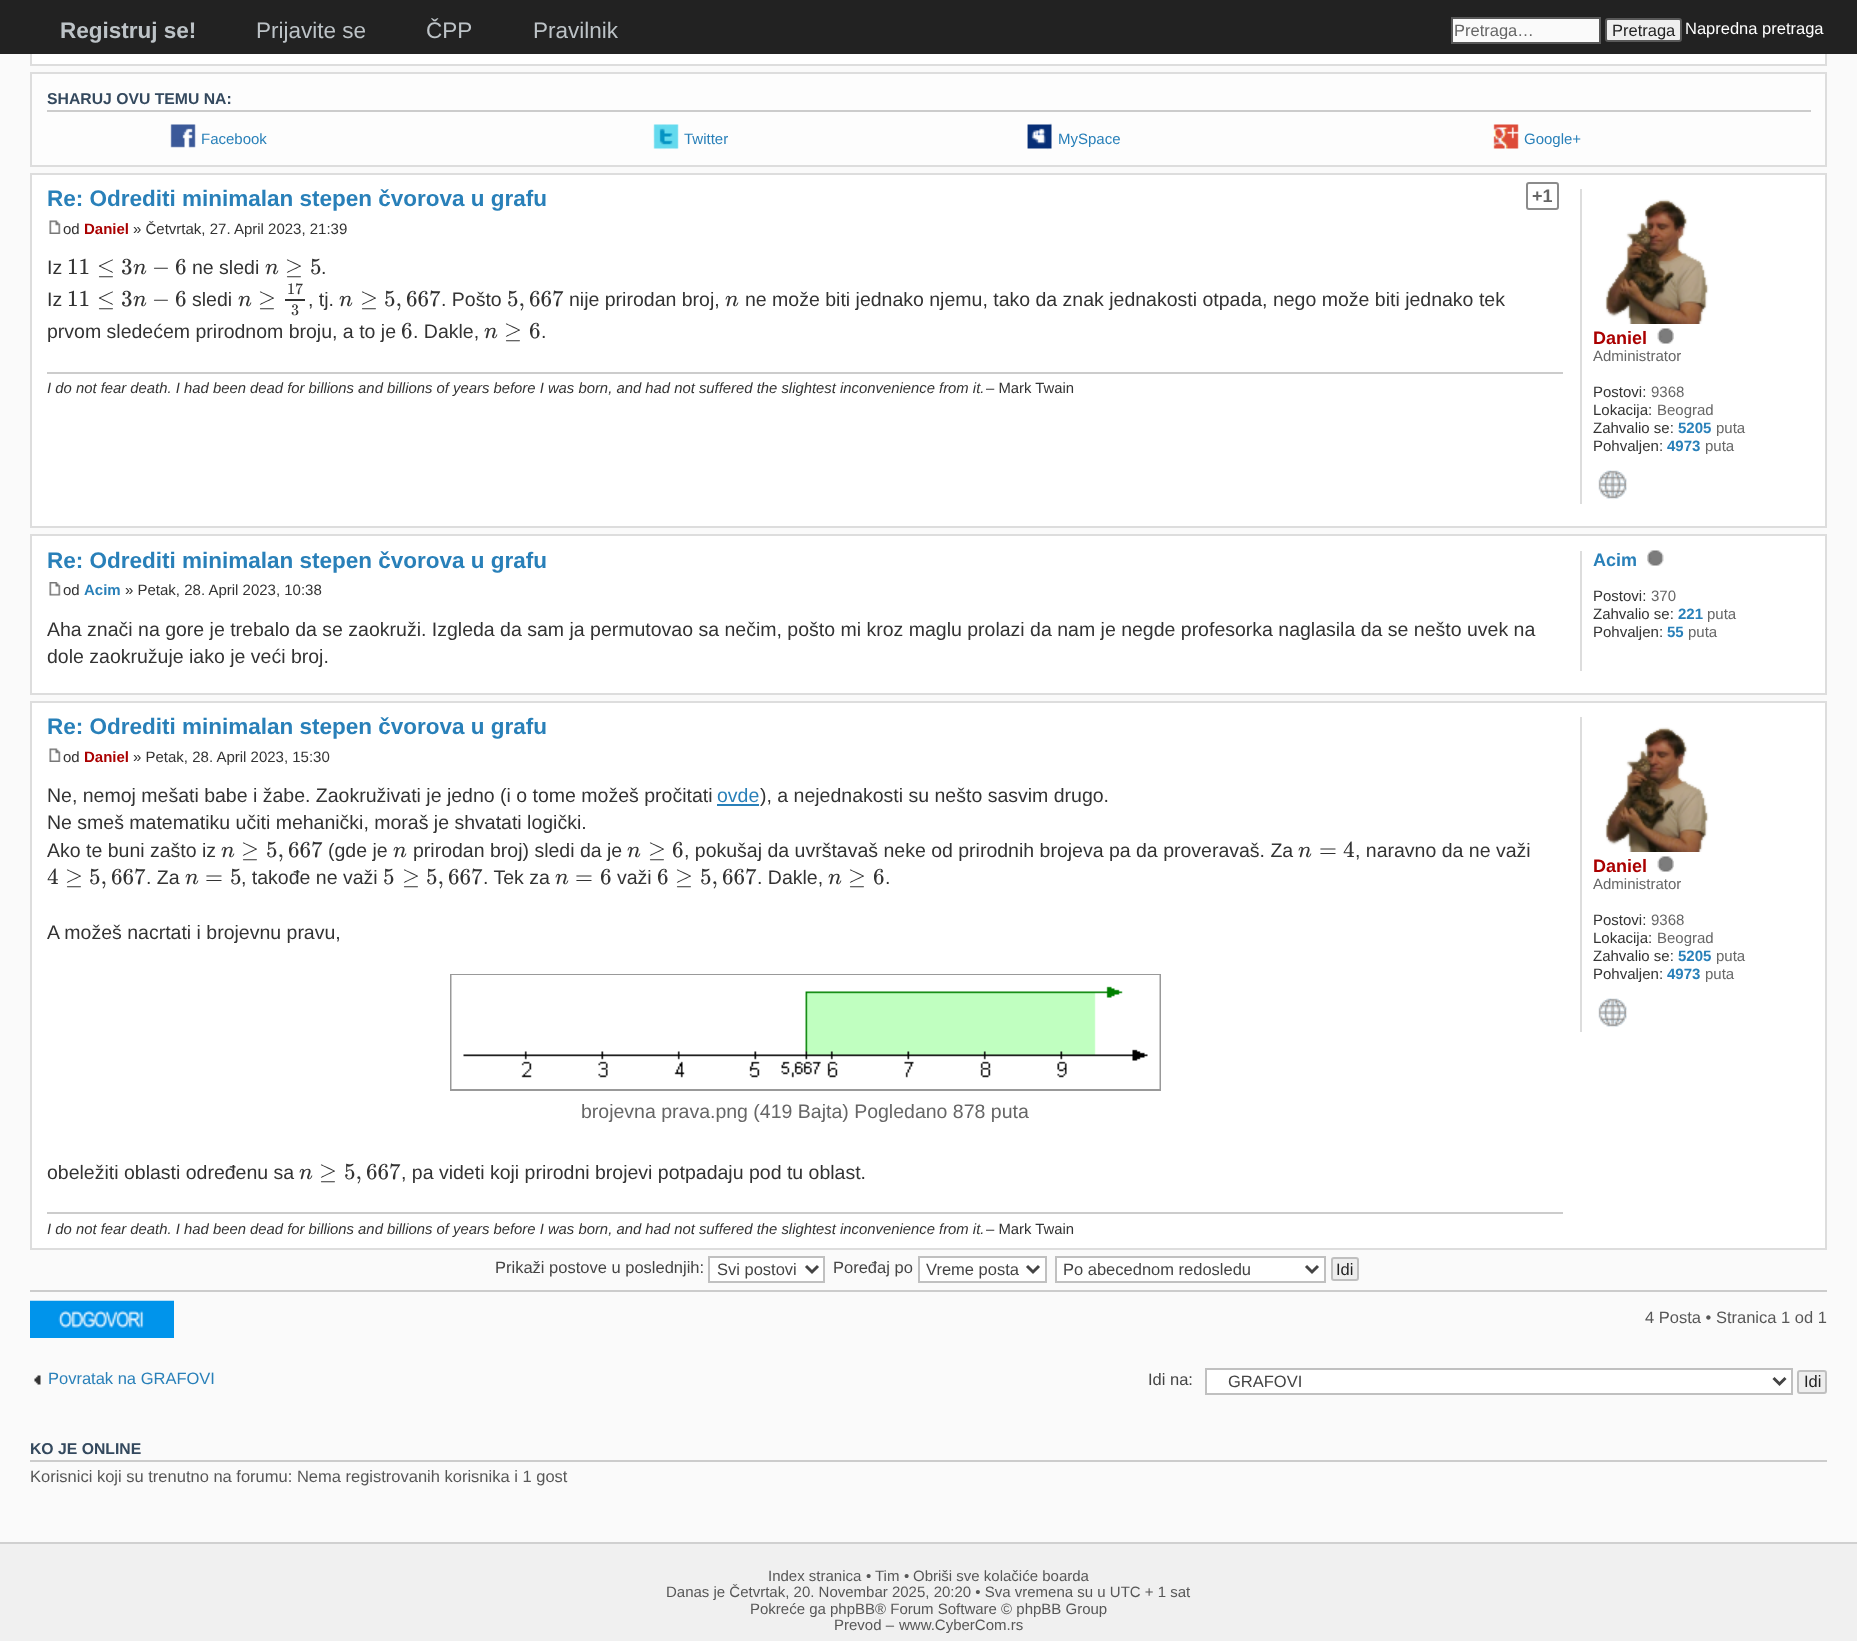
<!DOCTYPE html>
<meta charset="utf-8">
<style>body { margin: 0 } canvas { display: block }</style>
<canvas id="canvas" width="1857" height="1641"></canvas>
<img id="img1" src="images/1.png" hidden>
<img id="img2" src="images/2.png" hidden>
<img id="img3" src="images/3.png" hidden>
<img id="img4" src="images/4.png" hidden>
<img id="img5" src="images/5.png" hidden>
<img id="img6" src="images/6.png" hidden>
<img id="img7" src="images/7.png" hidden>
<img id="img8" src="images/8.png" hidden>
<img id="img9" src="images/9.png" hidden>
<img id="img10" src="images/10.png" hidden>
<img id="img11" src="images/11.png" hidden>
<img id="img12" src="images/12.png" hidden>
<img id="img13" src="images/13.png" hidden>
<img id="img14" src="images/14.png" hidden>
<script>
window.onload = function () {
    const canvas = document.getElementById('canvas');
    const context = canvas.getContext('2d');
    context.miterLimit = 4;
    context.fontKerning = 'normal';

    context.fillStyle = 'rgb(250, 250, 250)';
    context.fillRect(0, 0, 1857, 1641);
    context.fillStyle = 'rgb(255, 255, 255)';
    context.fillRect(32, 54, 1793, 10);
    context.strokeStyle = 'rgb(221, 221, 221)';
    context.lineWidth = 2;
    context.strokeRect(31, -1, 1795, 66);
    context.fillStyle = 'rgb(34, 34, 34)';
    context.fillRect(0, 0, 1857, 54);
    context.fillStyle = 'rgb(250, 250, 250)';
    context.beginPath();
    context.rect(1452, 18, 148, 25);
    context.fill();
    context.strokeStyle = 'rgb(88, 88, 88)';
    context.stroke();
    context.fillStyle = 'rgb(238, 238, 238)';
    context.beginPath();
    context.roundRect(1606, 19, 75, 22, 2);
    context.fill();
    context.stroke();
    context.fillStyle = 'rgb(253, 253, 253)';
    context.beginPath();
    context.rect(31, 73, 1795, 93);
    context.fill();
    context.strokeStyle = 'rgb(221, 221, 221)';
    context.stroke();
    context.fillStyle = 'rgb(204, 204, 204)';
    context.fillRect(47, 110, 1764, 2);
    context.drawImage(document.getElementById('img1'), 170, 124, 26, 24);
    context.drawImage(document.getElementById('img2'), 653, 124, 26, 26);
    context.drawImage(document.getElementById('img3'), 1027, 123, 25, 27);
    context.drawImage(document.getElementById('img4'), 1493, 124, 26, 25);
    context.fillStyle = 'rgb(255, 255, 255)';
    context.beginPath();
    context.rect(31, 174, 1795, 353);
    context.fill();
    context.stroke();
    context.beginPath();
    context.roundRect(1527, 183, 31, 26, 2);
    context.strokeStyle = 'rgb(139, 139, 139)';
    context.stroke();
    context.drawImage(document.getElementById('img5'), 49, 220, 12, 14);
    context.fillStyle = 'rgb(51, 51, 51)';
    context.fillRect(285, 299, 20, 2);
    context.fillStyle = 'rgb(204, 204, 204)';
    context.fillRect(47, 372, 1516, 2);
    context.fillStyle = 'rgb(221, 221, 221)';
    context.fillRect(1580, 189, 2, 315);
    context.drawImage(document.getElementById('img6'), 1605, 199, 104, 125);
    context.drawImage(document.getElementById('img7'), 1657, 328, 17, 16);
    context.drawImage(document.getElementById('img8'), 1598, 470, 30, 30);
    context.drawImage(document.getElementById('img9'), 1598, 470, 29, 29);
    context.fillStyle = 'rgb(255, 255, 255)';
    context.beginPath();
    context.rect(31, 535, 1795, 159);
    context.fill();
    context.strokeStyle = 'rgb(221, 221, 221)';
    context.stroke();
    context.drawImage(document.getElementById('img10'), 49, 582, 12, 14);
    context.fillStyle = 'rgb(221, 221, 221)';
    context.fillRect(1580, 551, 2, 120);
    context.drawImage(document.getElementById('img11'), 1647, 550, 17, 16);
    context.fillStyle = 'rgb(255, 255, 255)';
    context.beginPath();
    context.rect(31, 702, 1795, 547);
    context.fill();
    context.stroke();
    context.drawImage(document.getElementById('img5'), 49, 748, 12, 14);
    context.fillStyle = 'rgb(41, 128, 185)';
    context.fillRect(717, 804, 42, 2);
    context.strokeStyle = 'rgb(153, 153, 153)';
    context.strokeRect(451, 975, 709, 115);
    context.drawImage(document.getElementById('img12'), 451, 975, 709, 114);
    context.fillStyle = 'rgb(204, 204, 204)';
    context.fillRect(47, 1212, 1516, 2);
    context.fillStyle = 'rgb(221, 221, 221)';
    context.fillRect(1580, 717, 2, 315);
    context.drawImage(document.getElementById('img6'), 1605, 727, 104, 125);
    context.drawImage(document.getElementById('img7'), 1657, 856, 17, 16);
    context.drawImage(document.getElementById('img8'), 1598, 998, 30, 30);
    context.drawImage(document.getElementById('img9'), 1598, 998, 29, 29);
    context.fillStyle = 'rgb(255, 255, 255)';
    context.beginPath();
    context.rect(709, 1257, 115, 25);
    context.fill();
    context.strokeStyle = 'rgb(192, 192, 192)';
    context.stroke();
    context.beginPath();
    context.moveTo(806, 1266);
    context.lineTo(812, 1272);
    context.lineTo(818, 1266);
    context.strokeStyle = 'rgb(68, 68, 68)';
    context.lineWidth = 3;
    context.stroke();
    context.beginPath();
    context.rect(919, 1257, 127, 25);
    context.fill();
    context.strokeStyle = 'rgb(192, 192, 192)';
    context.lineWidth = 2;
    context.stroke();
    context.beginPath();
    context.moveTo(1027, 1266);
    context.lineTo(1033, 1272);
    context.lineTo(1039, 1266);
    context.strokeStyle = 'rgb(68, 68, 68)';
    context.lineWidth = 3;
    context.stroke();
    context.beginPath();
    context.rect(1056, 1257, 269, 25);
    context.fill();
    context.strokeStyle = 'rgb(192, 192, 192)';
    context.lineWidth = 2;
    context.stroke();
    context.beginPath();
    context.moveTo(1306, 1266);
    context.lineTo(1312, 1272);
    context.lineTo(1318, 1266);
    context.strokeStyle = 'rgb(68, 68, 68)';
    context.lineWidth = 3;
    context.stroke();
    context.fillStyle = 'rgb(238, 238, 238)';
    context.beginPath();
    context.roundRect(1332, 1258, 26, 22, 2);
    context.fill();
    context.strokeStyle = 'rgb(192, 192, 192)';
    context.lineWidth = 2;
    context.stroke();
    context.fillStyle = 'rgb(204, 204, 204)';
    context.fillRect(30, 1290, 1797, 2);
    context.drawImage(document.getElementById('img13'), 30, 1300, 144, 38);
    context.drawImage(document.getElementById('img14'), 34, 1375, 7, 10);
    context.fillStyle = 'rgb(255, 255, 255)';
    context.beginPath();
    context.rect(1206, 1369, 586, 25);
    context.fill();
    context.stroke();
    context.beginPath();
    context.moveTo(1773.5, 1378);
    context.lineTo(1779.5, 1384);
    context.lineTo(1785.5, 1378);
    context.strokeStyle = 'rgb(68, 68, 68)';
    context.lineWidth = 3;
    context.stroke();
    context.fillStyle = 'rgb(238, 238, 238)';
    context.beginPath();
    context.roundRect(1798, 1371, 28, 22, 2);
    context.fill();
    context.strokeStyle = 'rgb(192, 192, 192)';
    context.lineWidth = 2;
    context.stroke();
    context.fillStyle = 'rgb(204, 204, 204)';
    context.fillRect(30, 1460, 1797, 2);
    context.fillStyle = 'rgb(240, 240, 240)';
    context.fillRect(0, 1544, 1857, 97);
    context.fillStyle = 'rgb(208, 208, 208)';
    context.fillRect(0, 1542, 1857, 2);
    context.font = 'bold 22.5px Liberation Sans';
    context.fillStyle = 'rgb(189, 195, 199)';
    context.fillText('Registruj se!', 60, 38);
    context.font = '22.5px Liberation Sans';
    context.fillText('Prijavite se', 256, 38);
    context.fillText('ČPP', 426, 38);
    context.fillText('Pravilnik', 533, 38);
    context.save();
    context.beginPath();
    context.rect(1454, 21, 142, 18);
    context.clip();
    context.font = '16.5px Liberation Sans';
    context.fillStyle = 'rgb(102, 102, 102)';
    context.fillText('Pretraga…', 1454, 36);
    context.restore();
    context.font = '16.5px Liberation Sans';
    context.fillStyle = 'rgb(34, 34, 34)';
    context.fillText('Pretraga', 1612, 36);
    context.fillStyle = 'rgb(255, 255, 255)';
    context.fillText('Napredna pretraga', 1685, 34);
    context.font = 'bold 15.75px Liberation Sans';
    context.fillStyle = 'rgb(52, 73, 94)';
    context.fillText('SHARUJ OVU TEMU NA:', 47, 104);
    context.font = '15px Liberation Sans';
    context.fillStyle = 'rgb(41, 128, 185)';
    context.fillText('Facebook', 201, 144);
    context.fillText('Twitter', 684, 144);
    context.fillText('MySpace', 1058, 144);
    context.fillText('Google+', 1524, 144);
    context.font = 'bold 22.5px Liberation Sans';
    context.fillText('Re: Odrediti minimalan stepen čvorova u grafu', 47, 206);
    context.font = 'bold 18px Liberation Sans';
    context.fillStyle = 'rgb(102, 102, 102)';
    context.fillText('+1', 1532, 202);
    context.font = '15px Liberation Sans';
    context.fillStyle = 'rgb(51, 51, 51)';
    context.fillText('od', 63, 234);
    context.font = 'bold 15px Liberation Sans';
    context.fillStyle = 'rgb(170, 0, 0)';
    context.fillText('Daniel', 84, 234);
    context.font = '15px Liberation Sans';
    context.fillStyle = 'rgb(51, 51, 51)';
    context.fillText('» Četvrtak, 27. April 2023, 21:39', 133, 234);
    context.font = '19.5px Liberation Sans';
    context.fillText('Iz', 47, 274);
    context.font = '23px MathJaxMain';
    context.fillText('11', 67, 274);
    context.fillText('≤', 97, 274);
    context.fillText('3', 121, 274);
    context.font = 'italic 23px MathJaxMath';
    context.fillText('n', 133, 274);
    context.font = '23px MathJaxMain';
    context.fillText('−', 152, 274);
    context.fillText('6', 175, 274);
    context.font = '19.5px Liberation Sans';
    context.fillText('ne sledi', 192, 274);
    context.font = 'italic 23px MathJaxMath';
    context.fillText('n', 265, 274);
    context.font = '23px MathJaxMain';
    context.fillText('≥', 285, 274);
    context.fillText('5', 310, 274);
    context.font = '19.5px Liberation Sans';
    context.fillText('.', 321, 274);
    context.fillText('Iz', 47, 306);
    context.font = '23px MathJaxMain';
    context.fillText('11', 67, 306);
    context.fillText('≤', 97, 306);
    context.fillText('3', 121, 306);
    context.font = 'italic 23px MathJaxMath';
    context.fillText('n', 133, 306);
    context.font = '23px MathJaxMain';
    context.fillText('−', 152, 306);
    context.fillText('6', 175, 306);
    context.font = '19.5px Liberation Sans';
    context.fillText('sledi', 192, 306);
    context.font = 'italic 23px MathJaxMath';
    context.fillText('n', 238, 306);
    context.font = '23px MathJaxMain';
    context.fillText('≥', 258, 306);
    context.font = '16px MathJaxMain';
    context.fillText('17', 287, 294);
    context.fillText('3', 291, 315);
    context.font = '19.5px Liberation Sans';
    context.fillText(', tj.', 308, 306);
    context.font = 'italic 23px MathJaxMath';
    context.fillText('n', 339, 306);
    context.font = '23px MathJaxMain';
    context.fillText('≥', 360, 306);
    context.fillText('5,', 384, 306);
    context.fillText('667', 406, 306);
    context.font = '19.5px Liberation Sans';
    context.fillText('. Pošto', 441, 306);
    context.font = '23px MathJaxMain';
    context.fillText('5,', 507, 306);
    context.fillText('667', 529, 306);
    context.font = '19.5px Liberation Sans';
    context.fillText('nije prirodan broj,', 569, 306);
    context.font = 'italic 23px MathJaxMath';
    context.fillText('n', 725, 306);
    context.font = '19.5px Liberation Sans';
    context.fillText('ne može biti jednako njemu, tako da znak jednakosti otpada, nego može biti jednako tek', 745, 306);
    context.fillText('prvom sledećem prirodnom broju, a to je', 47, 338);
    context.font = '23px MathJaxMain';
    context.fillText('6', 401, 338);
    context.font = '19.5px Liberation Sans';
    context.fillText('. Dakle,', 413, 338);
    context.font = 'italic 23px MathJaxMath';
    context.fillText('n', 484, 338);
    context.font = '23px MathJaxMain';
    context.fillText('≥', 504, 338);
    context.fillText('6', 529, 338);
    context.font = '19.5px Liberation Sans';
    context.fillText('.', 541, 338);
    context.font = 'italic 14.85px Liberation Sans';
    context.fillText('I do not fear death. I had been dead for billions and billions of years before I was born, and had not suffered the slightest inconvenience from it.', 47, 393);
    context.font = '14.85px Liberation Sans';
    context.fillText('– Mark Twain', 986, 393);
    context.font = 'bold 18px Liberation Sans';
    context.fillStyle = 'rgb(170, 0, 0)';
    context.fillText('Daniel', 1593, 344);
    context.font = '15px Liberation Sans';
    context.fillStyle = 'rgb(102, 102, 102)';
    context.fillText('Administrator', 1593, 361);
    context.fillStyle = 'rgb(51, 51, 51)';
    context.fillText('Postovi:', 1593, 397);
    context.fillStyle = 'rgb(102, 102, 102)';
    context.fillText('9368', 1651, 397);
    context.fillStyle = 'rgb(51, 51, 51)';
    context.fillText('Lokacija:', 1593, 415);
    context.fillStyle = 'rgb(102, 102, 102)';
    context.fillText('Beograd', 1657, 415);
    context.fillStyle = 'rgb(51, 51, 51)';
    context.fillText('Zahvalio se:', 1593, 433);
    context.font = 'bold 15px Liberation Sans';
    context.fillStyle = 'rgb(41, 128, 185)';
    context.fillText('5205', 1678, 433);
    context.font = '15px Liberation Sans';
    context.fillStyle = 'rgb(102, 102, 102)';
    context.fillText('puta', 1716, 433);
    context.fillStyle = 'rgb(51, 51, 51)';
    context.fillText('Pohvaljen:', 1593, 451);
    context.font = 'bold 15px Liberation Sans';
    context.fillStyle = 'rgb(41, 128, 185)';
    context.fillText('4973', 1667, 451);
    context.font = '15px Liberation Sans';
    context.fillStyle = 'rgb(102, 102, 102)';
    context.fillText('puta', 1705, 451);
    context.font = 'bold 22.5px Liberation Sans';
    context.fillStyle = 'rgb(41, 128, 185)';
    context.fillText('Re: Odrediti minimalan stepen čvorova u grafu', 47, 568);
    context.font = '15px Liberation Sans';
    context.fillStyle = 'rgb(51, 51, 51)';
    context.fillText('od', 63, 595);
    context.font = 'bold 15px Liberation Sans';
    context.fillStyle = 'rgb(41, 128, 185)';
    context.fillText('Acim', 84, 595);
    context.font = '15px Liberation Sans';
    context.fillStyle = 'rgb(51, 51, 51)';
    context.fillText('» Petak, 28. April 2023, 10:38', 125, 595);
    context.font = '19.5px Liberation Sans';
    context.fillText('Aha znači na gore je trebalo da se zaokruži. Izgleda da sam ja permutovao sa nečim, pošto mi kroz maglu prolazi da nam je negde profesorka naglasila da se nešto uvek na', 47, 636);
    context.fillText('dole zaokružuje iako je veći broj.', 47, 663);
    context.font = 'bold 18px Liberation Sans';
    context.fillStyle = 'rgb(41, 128, 185)';
    context.fillText('Acim', 1593, 566);
    context.font = '15px Liberation Sans';
    context.fillStyle = 'rgb(51, 51, 51)';
    context.fillText('Postovi:', 1593, 601);
    context.fillStyle = 'rgb(102, 102, 102)';
    context.fillText('370', 1651, 601);
    context.fillStyle = 'rgb(51, 51, 51)';
    context.fillText('Zahvalio se:', 1593, 619);
    context.font = 'bold 15px Liberation Sans';
    context.fillStyle = 'rgb(41, 128, 185)';
    context.fillText('221', 1678, 619);
    context.font = '15px Liberation Sans';
    context.fillStyle = 'rgb(102, 102, 102)';
    context.fillText('puta', 1707, 619);
    context.fillStyle = 'rgb(51, 51, 51)';
    context.fillText('Pohvaljen:', 1593, 637);
    context.font = 'bold 15px Liberation Sans';
    context.fillStyle = 'rgb(41, 128, 185)';
    context.fillText('55', 1667, 637);
    context.font = '15px Liberation Sans';
    context.fillStyle = 'rgb(102, 102, 102)';
    context.fillText('puta', 1688, 637);
    context.font = 'bold 22.5px Liberation Sans';
    context.fillStyle = 'rgb(41, 128, 185)';
    context.fillText('Re: Odrediti minimalan stepen čvorova u grafu', 47, 734);
    context.font = '15px Liberation Sans';
    context.fillStyle = 'rgb(51, 51, 51)';
    context.fillText('od', 63, 762);
    context.font = 'bold 15px Liberation Sans';
    context.fillStyle = 'rgb(170, 0, 0)';
    context.fillText('Daniel', 84, 762);
    context.font = '15px Liberation Sans';
    context.fillStyle = 'rgb(51, 51, 51)';
    context.fillText('» Petak, 28. April 2023, 15:30', 133, 762);
    context.font = '19.5px Liberation Sans';
    context.fillText('Ne, nemoj mešati babe i žabe. Zaokruživati je jedno (i o tome možeš pročitati', 47, 802);
    context.fillStyle = 'rgb(41, 128, 185)';
    context.fillText('ovde', 717, 802);
    context.fillStyle = 'rgb(51, 51, 51)';
    context.fillText('), a nejednakosti su nešto sasvim drugo.', 760, 802);
    context.fillText('Ne smeš matematiku učiti mehanički, moraš je shvatati logički.', 47, 829);
    context.fillText('Ako te buni zašto iz', 47, 857);
    context.font = 'italic 23px MathJaxMath';
    context.fillText('n', 221, 857);
    context.font = '23px MathJaxMain';
    context.fillText('≥', 241, 857);
    context.fillText('5,', 266, 857);
    context.fillText('667', 288, 857);
    context.font = '19.5px Liberation Sans';
    context.fillText('(gde je', 328, 857);
    context.font = 'italic 23px MathJaxMath';
    context.fillText('n', 393, 857);
    context.font = '19.5px Liberation Sans';
    context.fillText('prirodan broj) sledi da je', 413, 857);
    context.font = 'italic 23px MathJaxMath';
    context.fillText('n', 627, 857);
    context.font = '23px MathJaxMain';
    context.fillText('≥', 648, 857);
    context.fillText('6', 672, 857);
    context.font = '19.5px Liberation Sans';
    context.fillText(', pokušaj da uvrštavaš neke od prirodnih brojeva pa da proveravaš. Za', 684, 857);
    context.font = 'italic 23px MathJaxMath';
    context.fillText('n', 1298, 857);
    context.font = '23px MathJaxMain';
    context.fillText('=', 1319, 857);
    context.fillText('4', 1343, 857);
    context.font = '19.5px Liberation Sans';
    context.fillText(', naravno da ne važi', 1355, 857);
    context.font = '23px MathJaxMain';
    context.fillText('4', 47, 884);
    context.fillText('≥', 65, 884);
    context.fillText('5,', 89, 884);
    context.fillText('667', 111, 884);
    context.font = '19.5px Liberation Sans';
    context.fillText('. Za', 146, 884);
    context.font = 'italic 23px MathJaxMath';
    context.fillText('n', 185, 884);
    context.font = '23px MathJaxMain';
    context.fillText('=', 205, 884);
    context.fillText('5', 230, 884);
    context.font = '19.5px Liberation Sans';
    context.fillText(', takođe ne važi', 241, 884);
    context.font = '23px MathJaxMain';
    context.fillText('5', 383, 884);
    context.fillText('≥', 402, 884);
    context.fillText('5,', 426, 884);
    context.fillText('667', 448, 884);
    context.font = '19.5px Liberation Sans';
    context.fillText('. Tek za', 483, 884);
    context.font = 'italic 23px MathJaxMath';
    context.fillText('n', 555, 884);
    context.font = '23px MathJaxMain';
    context.fillText('=', 575, 884);
    context.fillText('6', 600, 884);
    context.font = '19.5px Liberation Sans';
    context.fillText('važi', 617, 884);
    context.font = '23px MathJaxMain';
    context.fillText('6', 657, 884);
    context.fillText('≥', 675, 884);
    context.fillText('5,', 700, 884);
    context.fillText('667', 722, 884);
    context.font = '19.5px Liberation Sans';
    context.fillText('. Dakle,', 757, 884);
    context.font = 'italic 23px MathJaxMath';
    context.fillText('n', 828, 884);
    context.font = '23px MathJaxMain';
    context.fillText('≥', 848, 884);
    context.fillText('6', 873, 884);
    context.font = '19.5px Liberation Sans';
    context.fillText('.', 885, 884);
    context.fillText('A možeš nacrtati i brojevnu pravu,', 47, 939);
    context.fillStyle = 'rgb(102, 102, 102)';
    context.fillText('brojevna prava.png (419 Bajta) Pogledano 878 puta', 581, 1118);
    context.fillStyle = 'rgb(51, 51, 51)';
    context.fillText('obeležiti oblasti određenu sa', 47, 1179);
    context.font = 'italic 23px MathJaxMath';
    context.fillText('n', 299, 1179);
    context.font = '23px MathJaxMain';
    context.fillText('≥', 319, 1179);
    context.fillText('5,', 344, 1179);
    context.fillText('667', 366, 1179);
    context.font = '19.5px Liberation Sans';
    context.fillText(', pa videti koji prirodni brojevi potpadaju pod tu oblast.', 401, 1179);
    context.font = 'italic 14.85px Liberation Sans';
    context.fillText('I do not fear death. I had been dead for billions and billions of years before I was born, and had not suffered the slightest inconvenience from it.', 47, 1234);
    context.font = '14.85px Liberation Sans';
    context.fillText('– Mark Twain', 986, 1234);
    context.font = 'bold 18px Liberation Sans';
    context.fillStyle = 'rgb(170, 0, 0)';
    context.fillText('Daniel', 1593, 872);
    context.font = '15px Liberation Sans';
    context.fillStyle = 'rgb(102, 102, 102)';
    context.fillText('Administrator', 1593, 889);
    context.fillStyle = 'rgb(51, 51, 51)';
    context.fillText('Postovi:', 1593, 925);
    context.fillStyle = 'rgb(102, 102, 102)';
    context.fillText('9368', 1651, 925);
    context.fillStyle = 'rgb(51, 51, 51)';
    context.fillText('Lokacija:', 1593, 943);
    context.fillStyle = 'rgb(102, 102, 102)';
    context.fillText('Beograd', 1657, 943);
    context.fillStyle = 'rgb(51, 51, 51)';
    context.fillText('Zahvalio se:', 1593, 961);
    context.font = 'bold 15px Liberation Sans';
    context.fillStyle = 'rgb(41, 128, 185)';
    context.fillText('5205', 1678, 961);
    context.font = '15px Liberation Sans';
    context.fillStyle = 'rgb(102, 102, 102)';
    context.fillText('puta', 1716, 961);
    context.fillStyle = 'rgb(51, 51, 51)';
    context.fillText('Pohvaljen:', 1593, 979);
    context.font = 'bold 15px Liberation Sans';
    context.fillStyle = 'rgb(41, 128, 185)';
    context.fillText('4973', 1667, 979);
    context.font = '15px Liberation Sans';
    context.fillStyle = 'rgb(102, 102, 102)';
    context.fillText('puta', 1705, 979);
    context.font = '16.5px Liberation Sans';
    context.fillStyle = 'rgb(68, 68, 68)';
    context.fillText('Prikaži postove u poslednjih:', 495, 1273);
    context.fillText('Svi postovi', 717, 1275);
    context.fillText('Poređaj po', 833, 1273);
    context.fillText('Vreme posta', 926, 1275);
    context.fillText('Po abecednom redosledu', 1063, 1275);
    context.fillStyle = 'rgb(34, 34, 34)';
    context.fillText('Idi', 1336, 1275);
    context.fillStyle = 'rgb(87, 87, 87)';
    context.fillText('4 Posta • Stranica 1 od 1', 1645, 1323);
    context.fillStyle = 'rgb(41, 128, 185)';
    context.fillText('Povratak na GRAFOVI', 48, 1384);
    context.fillStyle = 'rgb(68, 68, 68)';
    context.fillText('Idi na:', 1148, 1385);
    context.fillText('GRAFOVI', 1228, 1387);
    context.fillStyle = 'rgb(34, 34, 34)';
    context.fillText('Idi', 1804, 1387);
    context.font = 'bold 15.75px Liberation Sans';
    context.fillStyle = 'rgb(52, 73, 94)';
    context.fillText('KO JE ONLINE', 30, 1454);
    context.font = '16.5px Liberation Sans';
    context.fillStyle = 'rgb(87, 87, 87)';
    context.fillText('Korisnici koji su trenutno na forumu: Nema registrovanih korisnika i 1 gost', 30, 1482);
    context.font = '15px Liberation Sans';
    context.fillText('Index stranica', 768, 1581);
    context.fillText('•', 866, 1581);
    context.fillText('Tim', 875, 1581);
    context.fillText('•', 904, 1581);
    context.fillText('Obriši sve kolačiće boarda', 913, 1581);
    context.fillText('Danas je Četvrtak, 20. Novembar 2025, 20:20 • Sva vremena su u UTC + 1 sat', 666, 1597);
    context.fillText('Pokreće ga', 750, 1614);
    context.fillText('phpBB', 830, 1614);
    context.fillText('® Forum Software © phpBB Group', 875, 1614);
    context.fillText('Prevod –', 834, 1630);
    context.fillText('www.CyberCom.rs', 899, 1630);
};
</script>
